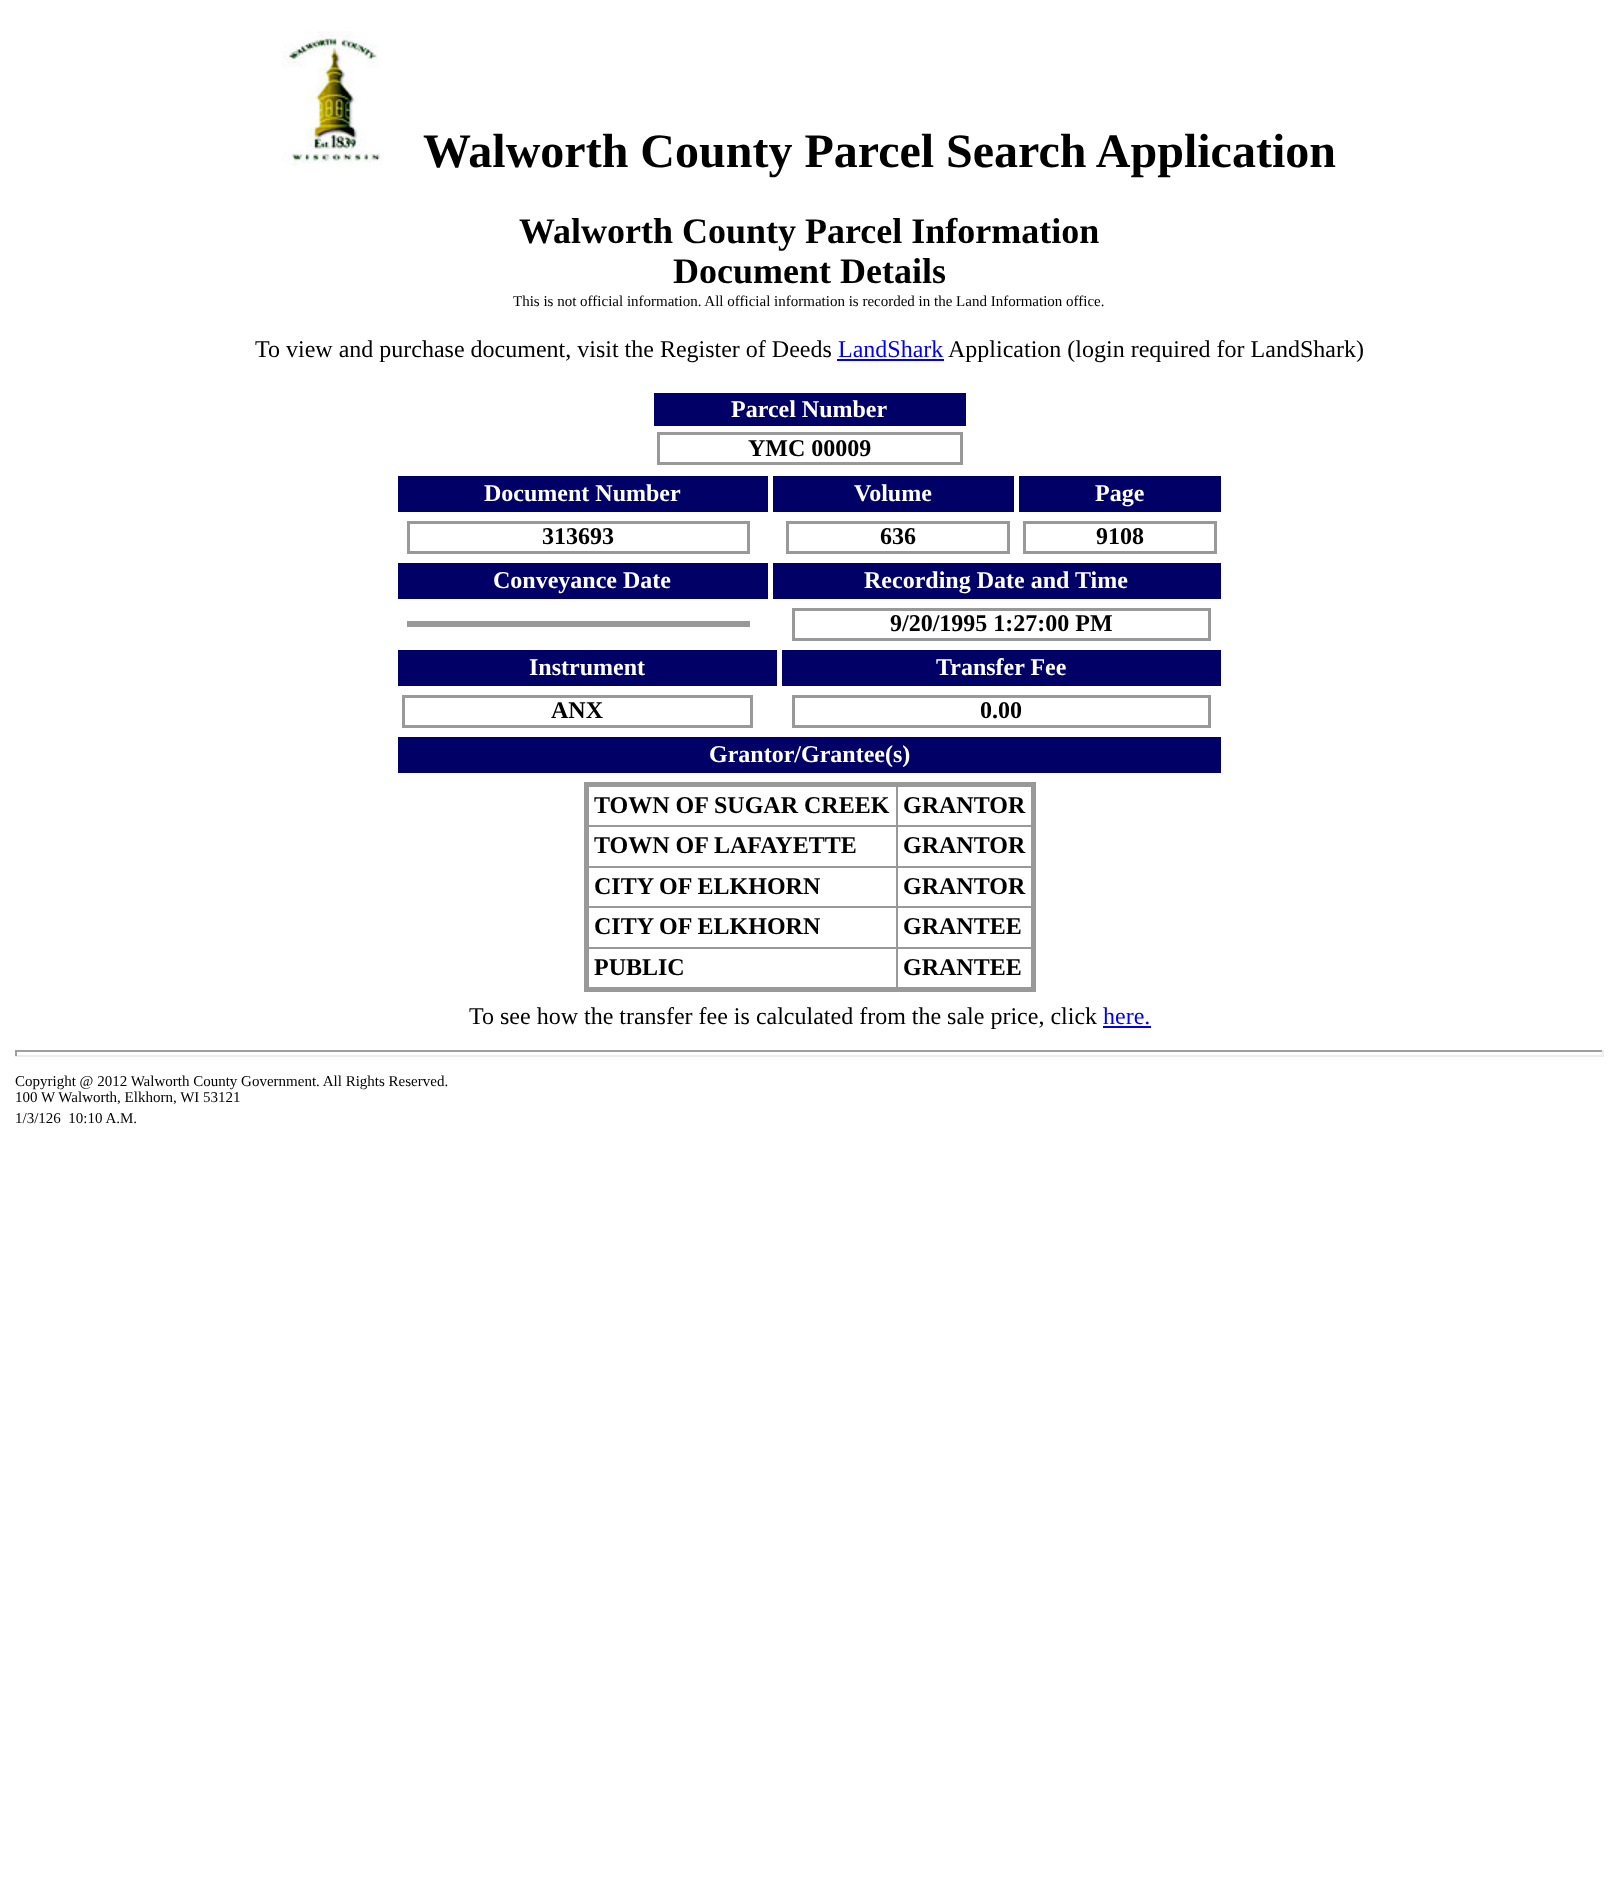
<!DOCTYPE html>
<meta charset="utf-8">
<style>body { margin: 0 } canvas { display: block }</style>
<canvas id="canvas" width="1618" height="1900"></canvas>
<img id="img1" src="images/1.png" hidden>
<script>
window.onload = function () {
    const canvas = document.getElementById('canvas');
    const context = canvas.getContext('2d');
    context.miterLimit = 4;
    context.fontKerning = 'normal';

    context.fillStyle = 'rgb(255, 255, 255)';
    context.fillRect(0, 0, 1618, 1900);
    context.drawImage(document.getElementById('img1'), 282, 31, 100, 135);
    context.fillStyle = 'rgb(0, 0, 238)';
    context.fillRect(837, 359, 107, 2);
    context.fillStyle = 'rgb(0, 0, 102)';
    context.fillRect(654, 393, 312, 33);
    context.strokeStyle = 'rgb(153, 153, 153)';
    context.lineWidth = 3;
    context.strokeRect(658.5, 433.5, 303, 30);
    context.fillRect(398, 476, 370, 36);
    context.fillRect(773, 476, 241, 36);
    context.fillRect(1019, 476, 202, 36);
    context.strokeRect(408.5, 522.5, 340, 30);
    context.strokeRect(787.5, 522.5, 221, 30);
    context.strokeRect(1024.5, 522.5, 191, 30);
    context.fillRect(398, 563, 370, 36);
    context.fillRect(773, 563, 448, 36);
    context.fillStyle = 'rgb(153, 153, 153)';
    context.fillRect(407, 621, 343, 6);
    context.strokeRect(793.5, 609.5, 416, 30);
    context.fillStyle = 'rgb(0, 0, 102)';
    context.fillRect(398, 650, 379, 36);
    context.fillRect(782, 650, 439, 36);
    context.strokeRect(403.5, 696.5, 348, 30);
    context.strokeRect(793.5, 696.5, 416, 30);
    context.fillRect(398, 737, 823, 36);
    context.fillStyle = 'rgb(153, 153, 153)';
    context.fillRect(896, 825, 138, 2);
    context.fillRect(896, 866, 138, 2);
    context.fillRect(896, 906, 138, 2);
    context.fillRect(896, 947, 138, 2);
    context.fillRect(896, 947, 2, 43);
    context.fillRect(585, 947, 312, 2);
    context.fillRect(896, 906, 2, 42);
    context.fillRect(585, 906, 312, 2);
    context.fillRect(896, 866, 2, 42);
    context.fillRect(585, 866, 312, 2);
    context.fillRect(896, 825, 2, 42);
    context.fillRect(585, 825, 312, 2);
    context.fillRect(896, 783, 2, 44);
    context.fillRect(584, 782, 451, 5);
    context.fillRect(1031, 782, 5, 210);
    context.fillRect(584, 987, 451, 5);
    context.fillRect(584, 782, 5, 210);
    context.fillStyle = 'rgb(0, 0, 238)';
    context.fillRect(1103, 1026, 48, 2);
    context.fillStyle = 'rgb(159, 159, 159)';
    context.fillRect(15, 1050, 1589, 2);
    context.fillStyle = 'rgb(238, 238, 238)';
    context.fillRect(1602, 1050, 2, 6);
    context.fillRect(15, 1055, 1589, 2);
    context.fillStyle = 'rgb(159, 159, 159)';
    context.fillRect(15, 1050, 2, 6);
    context.font = 'bold 48px Liberation Serif';
    context.fillStyle = 'rgb(0, 0, 0)';
    context.fillText('Walworth County Parcel Search Application', 423, 167);
    context.font = 'bold 36px Liberation Serif';
    context.fillText('Walworth County Parcel Information', 519, 243);
    context.fillText('Document Details', 673, 283);
    context.font = '15px Liberation Serif';
    context.fillText('This is not official information. All official information is recorded in the Land Information office.', 513, 306);
    context.font = '24px Liberation Serif';
    context.fillText('To view and purchase document, visit the Register of Deeds', 255, 357);
    context.fillStyle = 'rgb(0, 0, 238)';
    context.fillText('LandShark', 838, 357);
    context.fillStyle = 'rgb(0, 0, 0)';
    context.fillText('Application (login required for LandShark)', 948, 357);
    context.font = 'bold 24px Liberation Serif';
    context.fillStyle = 'rgb(255, 255, 255)';
    context.fillText('Parcel Number', 731, 417);
    context.fillStyle = 'rgb(0, 0, 0)';
    context.fillText('YMC 00009', 748, 456);
    context.fillStyle = 'rgb(255, 255, 255)';
    context.fillText('Document Number', 484, 501);
    context.fillText('Volume', 854, 501);
    context.fillText('Page', 1095, 501);
    context.fillStyle = 'rgb(0, 0, 0)';
    context.fillText('313693', 542, 544);
    context.fillText('636', 880, 544);
    context.fillText('9108', 1096, 544);
    context.fillStyle = 'rgb(255, 255, 255)';
    context.fillText('Conveyance Date', 493, 588);
    context.fillText('Recording Date and Time', 864, 588);
    context.fillStyle = 'rgb(0, 0, 0)';
    context.fillText('9/20/1995 1:27:00 PM', 890, 631);
    context.fillStyle = 'rgb(255, 255, 255)';
    context.fillText('Instrument', 529, 675);
    context.fillText('Transfer Fee', 936, 675);
    context.fillStyle = 'rgb(0, 0, 0)';
    context.fillText('ANX', 551, 718);
    context.fillText('0.00', 980, 718);
    context.fillStyle = 'rgb(255, 255, 255)';
    context.fillText('Grantor/Grantee(s)', 709, 762);
    context.fillStyle = 'rgb(0, 0, 0)';
    context.fillText('TOWN OF SUGAR CREEK', 594, 813);
    context.fillText('GRANTOR', 903, 813);
    context.fillText('TOWN OF LAFAYETTE', 594, 853);
    context.fillText('GRANTOR', 903, 853);
    context.fillText('CITY OF ELKHORN', 594, 894);
    context.fillText('GRANTOR', 903, 894);
    context.fillText('CITY OF ELKHORN', 594, 934);
    context.fillText('GRANTEE', 903, 934);
    context.fillText('PUBLIC', 594, 975);
    context.fillText('GRANTEE', 903, 975);
    context.font = '24px Liberation Serif';
    context.fillText('To see how the transfer fee is calculated from the sale price, click', 469, 1024);
    context.fillStyle = 'rgb(0, 0, 238)';
    context.fillText('here.', 1103, 1024);
    context.font = '15px Liberation Serif';
    context.fillStyle = 'rgb(0, 0, 0)';
    context.fillText('Copyright @ 2012 Walworth County Government. All Rights Reserved.', 15, 1086);
    context.fillText('100 W Walworth, Elkhorn, WI 53121', 15, 1102);
    context.fillText('1/3/126  10:10 A.M.', 15, 1123);
};
</script>
